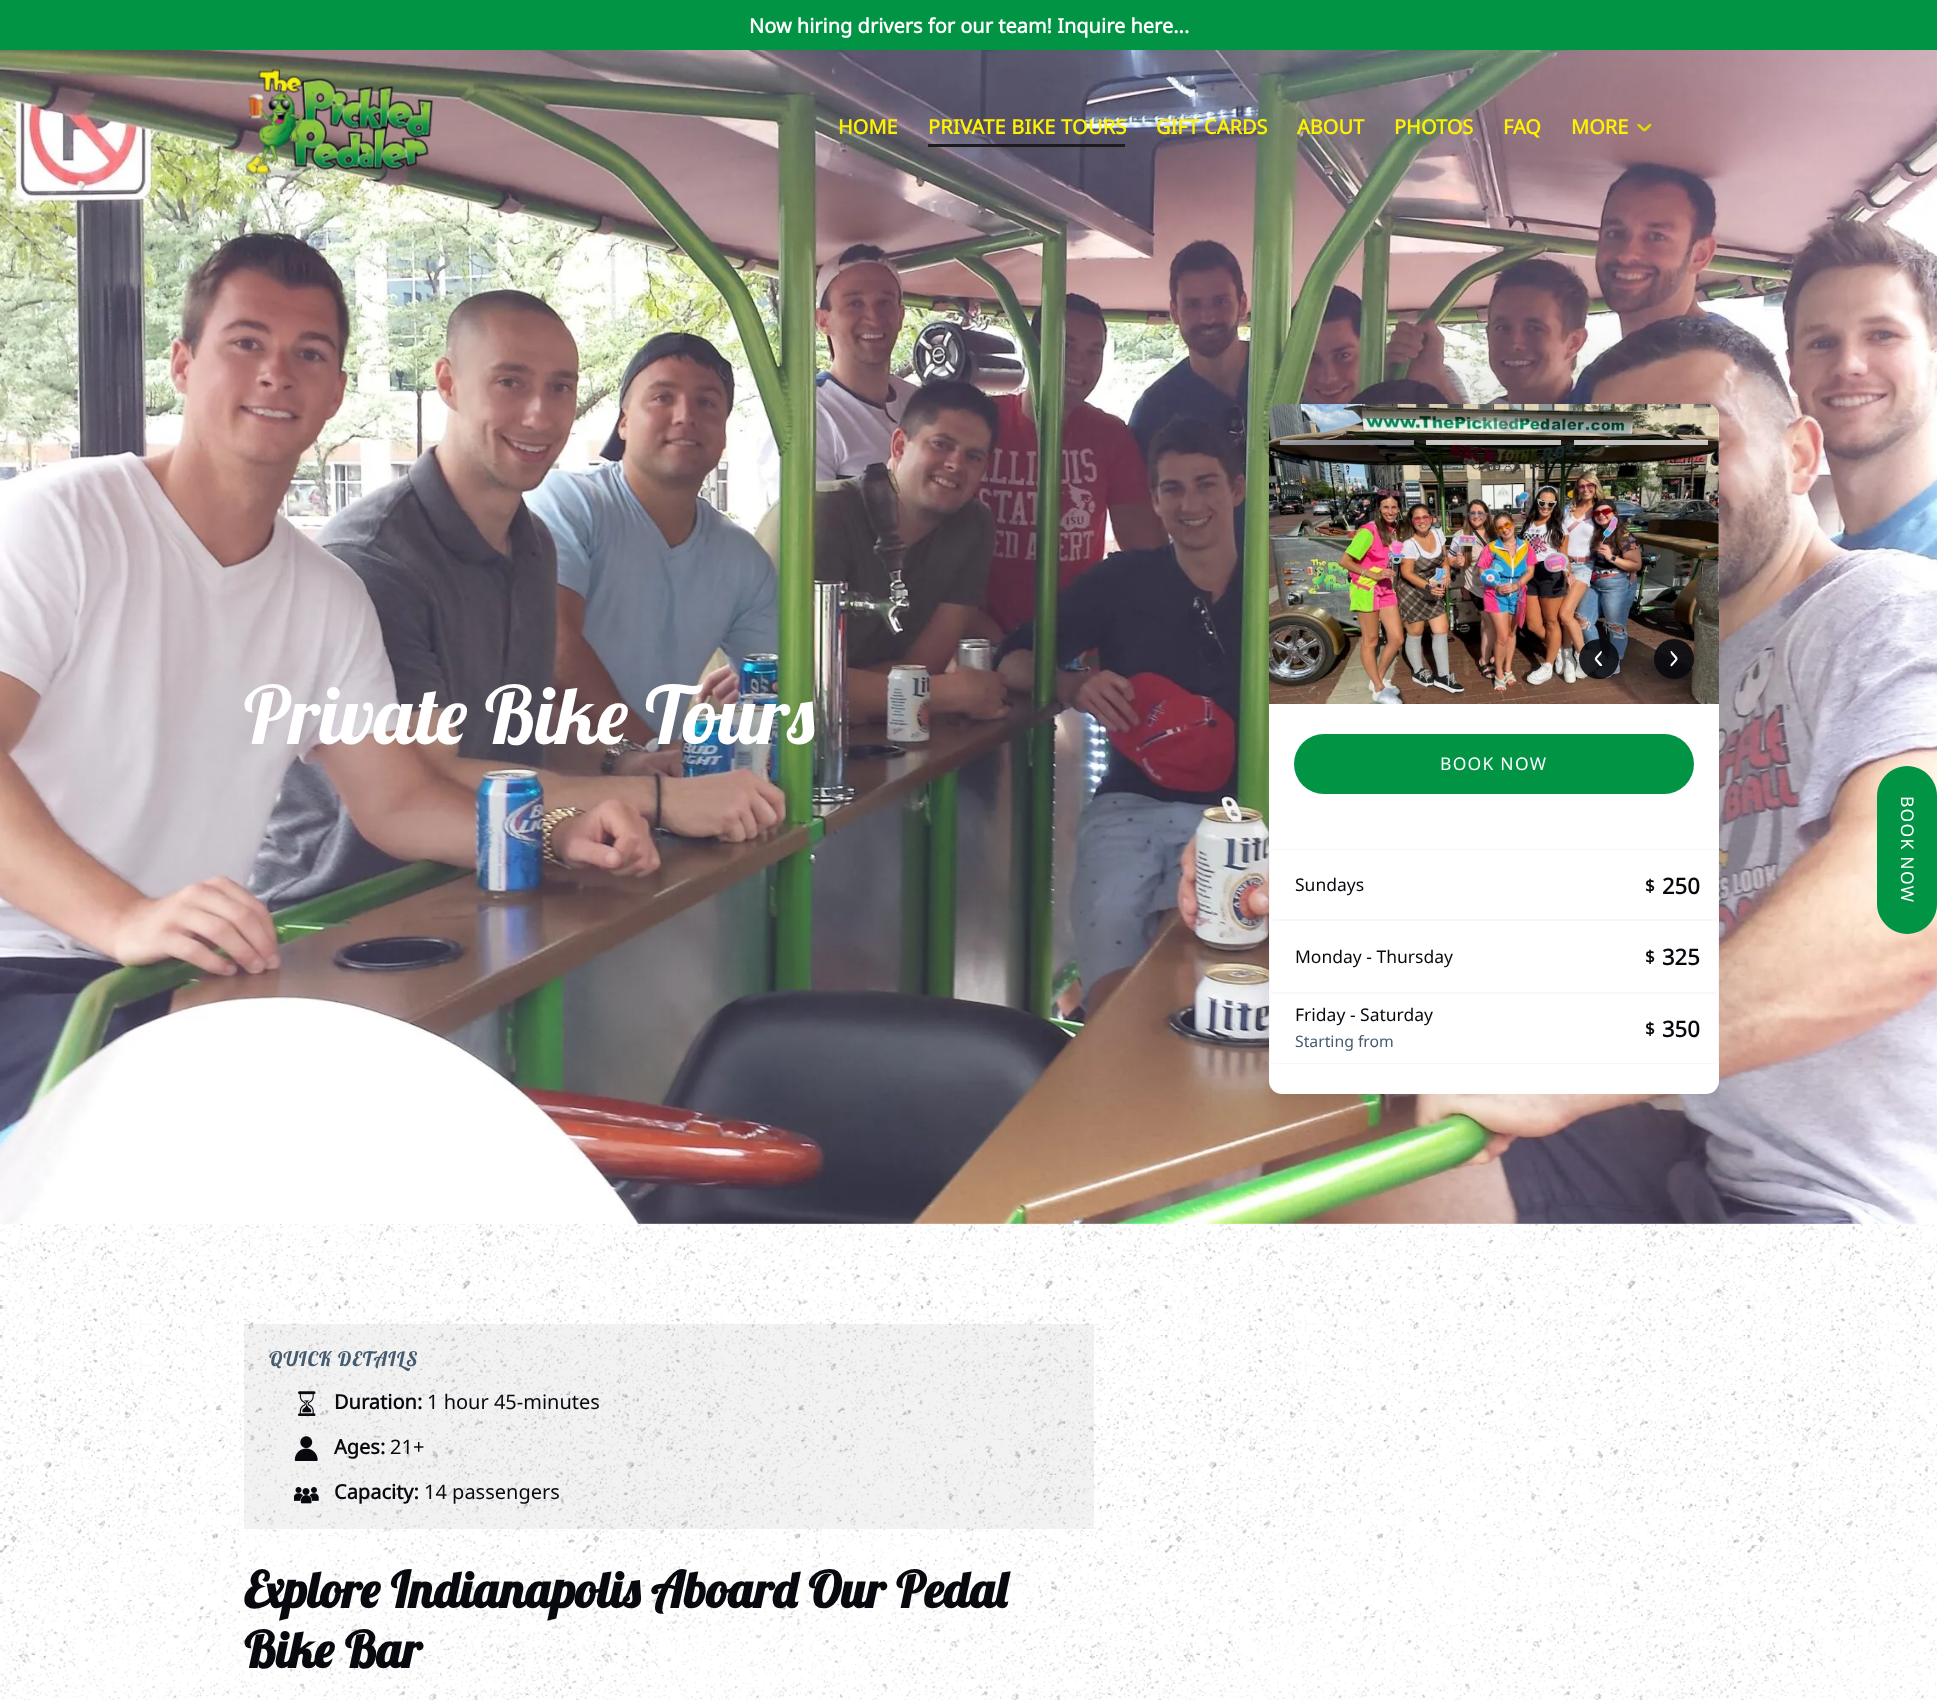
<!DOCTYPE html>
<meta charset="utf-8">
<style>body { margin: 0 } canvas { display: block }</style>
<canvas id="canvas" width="1937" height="1700"></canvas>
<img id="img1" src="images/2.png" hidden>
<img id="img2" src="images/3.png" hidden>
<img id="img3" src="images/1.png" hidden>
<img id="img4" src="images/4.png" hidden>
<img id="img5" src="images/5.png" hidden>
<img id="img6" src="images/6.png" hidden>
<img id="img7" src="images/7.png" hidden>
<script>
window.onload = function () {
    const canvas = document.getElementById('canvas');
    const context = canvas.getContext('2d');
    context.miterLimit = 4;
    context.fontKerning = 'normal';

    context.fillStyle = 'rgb(255, 255, 255)';
    context.fillRect(0, 0, 1937, 1700);
    context.fillStyle = 'rgb(1, 148, 68)';
    context.fillRect(0, 0, 1937, 50);
    context.drawImage(document.getElementById('img1'), 0, 50, 1937, 1650);
    context.drawImage(document.getElementById('img2'), 0, 50, 1937, 1174);
    context.drawImage(document.getElementById('img3'), 245, 68, 188, 108);
    context.fillStyle = 'rgb(28, 28, 28)';
    context.fillRect(928, 144, 197, 3);
    context.fillStyle = 'rgb(230, 217, 3)';
    context.beginPath();
    context.moveTo(1637.5, 124);
    context.bezierCurveTo(1639, 122.5, 1641.5, 126, 1642, 126.5);
    context.bezierCurveTo(1643, 127.5, 1646, 129.5, 1645, 131);
    context.bezierCurveTo(1643.5, 132.5, 1641, 129, 1640.5, 128.5);
    context.bezierCurveTo(1639.5, 127.5, 1636.5, 125.5, 1637.5, 124);
    context.closePath();
    context.fill();
    context.beginPath();
    context.moveTo(1651, 124);
    context.bezierCurveTo(1652.5, 125.5, 1649, 127.5, 1648.5, 128.5);
    context.bezierCurveTo(1647.5, 129, 1645.5, 132.5, 1644, 131);
    context.bezierCurveTo(1642.5, 129.5, 1646, 127.5, 1646.5, 126.5);
    context.bezierCurveTo(1647.5, 126, 1649.5, 122.5, 1651, 124);
    context.closePath();
    context.fill();
    context.fillStyle = 'rgba(8, 9, 14, 0.15)';
    context.filter = 'blur(47px)';
    context.beginPath();
    context.roundRect(1269, 391, 450, 690, 13);
    context.fill();
    context.filter = 'none';
    context.fillStyle = 'rgb(255, 255, 255)';
    context.beginPath();
    context.roundRect(1269, 404, 450, 690, 13);
    context.fill();
    context.drawImage(document.getElementById('img4'), 1269, 404, 450, 300);
    context.fillStyle = 'rgba(178, 184, 193, 0.75)';
    context.fillRect(1280, 440, 134, 5);
    context.fillStyle = 'rgba(255, 255, 255, 0.75)';
    context.fillRect(1426, 440, 135, 5);
    context.fillRect(1574, 440, 134, 5);
    context.save();
    context.beginPath();
    context.moveTo(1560, 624);
    context.lineTo(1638, 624);
    context.lineTo(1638, 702);
    context.lineTo(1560, 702);
    context.closePath();
    context.moveTo(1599, 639);
    context.bezierCurveTo(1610, 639, 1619, 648, 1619, 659);
    context.bezierCurveTo(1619, 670, 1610, 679, 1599, 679);
    context.bezierCurveTo(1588, 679, 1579, 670, 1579, 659);
    context.bezierCurveTo(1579, 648, 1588, 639, 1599, 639);
    context.closePath();
    context.clip('evenodd');
    context.fillStyle = 'rgba(8, 9, 14, 0.25)';
    context.filter = 'blur(6px)';
    context.beginPath();
    context.roundRect(1579, 643, 40, 40, 20);
    context.fill();
    context.filter = 'none';
    context.restore();
    context.fillStyle = 'rgba(8, 9, 14, 0.9)';
    context.beginPath();
    context.arc(1599, 659, 20, 0, 2 * Math.PI);
    context.fill();
    context.fillStyle = 'rgb(255, 255, 255)';
    context.beginPath();
    context.moveTo(1601, 651);
    context.bezierCurveTo(1604.5, 651, 1597.5, 658, 1597, 659);
    context.bezierCurveTo(1594, 659, 1594.5, 658.5, 1596, 656.5);
    context.closePath();
    context.moveTo(1595.5, 659);
    context.lineTo(1597, 659);
    context.lineTo(1601.5, 664);
    context.bezierCurveTo(1602.5, 665.5, 1602.5, 666, 1601, 666);
    context.lineTo(1600, 666);
    context.lineTo(1595, 660);
    context.bezierCurveTo(1594.5, 659, 1595, 659, 1595.5, 659);
    context.closePath();
    context.fill();
    context.save();
    context.beginPath();
    context.moveTo(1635, 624);
    context.lineTo(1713, 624);
    context.lineTo(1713, 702);
    context.lineTo(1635, 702);
    context.closePath();
    context.moveTo(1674, 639);
    context.bezierCurveTo(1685, 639, 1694, 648, 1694, 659);
    context.bezierCurveTo(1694, 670, 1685, 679, 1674, 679);
    context.bezierCurveTo(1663, 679, 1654, 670, 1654, 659);
    context.bezierCurveTo(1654, 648, 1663, 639, 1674, 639);
    context.closePath();
    context.clip('evenodd');
    context.fillStyle = 'rgba(8, 9, 14, 0.25)';
    context.filter = 'blur(6px)';
    context.beginPath();
    context.roundRect(1654, 643, 40, 40, 20);
    context.fill();
    context.filter = 'none';
    context.restore();
    context.fillStyle = 'rgba(8, 9, 14, 0.9)';
    context.beginPath();
    context.arc(1674, 659, 20, 0, 2 * Math.PI);
    context.fill();
    context.fillStyle = 'rgb(255, 255, 255)';
    context.beginPath();
    context.moveTo(1671.5, 651);
    context.lineTo(1676.5, 656.5);
    context.bezierCurveTo(1678, 658.5, 1678.5, 659, 1675.5, 659);
    context.bezierCurveTo(1675, 658, 1668, 651, 1671.5, 651);
    context.closePath();
    context.moveTo(1675.5, 659);
    context.bezierCurveTo(1678, 659, 1678, 659, 1676.5, 661);
    context.lineTo(1672, 666);
    context.bezierCurveTo(1670.5, 667, 1670, 665.5, 1671, 664);
    context.closePath();
    context.fill();
    context.fillStyle = 'rgb(1, 148, 68)';
    context.beginPath();
    context.roundRect(1294, 734, 400, 60, 30);
    context.fill();
    context.beginPath();
    context.roundRect(1269.5, 849.5, 449, 70, 4.5);
    context.strokeStyle = 'rgb(245, 247, 249)';
    context.stroke();
    context.beginPath();
    context.roundRect(1269.5, 920.5, 449, 72, 4.5);
    context.stroke();
    context.beginPath();
    context.roundRect(1269.5, 993.5, 449, 70, 4.5);
    context.stroke();
    context.fillStyle = 'rgba(8, 9, 14, 0.05)';
    context.fillRect(244, 1324, 850, 205);
    context.drawImage(document.getElementById('img5'), 298, 1391, 18, 25);
    context.drawImage(document.getElementById('img6'), 294, 1436, 24, 25);
    context.drawImage(document.getElementById('img7'), 294, 1487, 25, 17);
    context.fillStyle = 'rgb(1, 148, 68)';
    context.beginPath();
    context.moveTo(1937, 796);
    context.lineTo(1937, 904);
    context.bezierCurveTo(1937, 920, 1924, 934, 1907, 934);
    context.bezierCurveTo(1891, 934, 1877, 920, 1877, 904);
    context.lineTo(1877, 796);
    context.bezierCurveTo(1877, 780, 1891, 766, 1907, 766);
    context.bezierCurveTo(1924, 766, 1937, 780, 1937, 796);
    context.closePath();
    context.fill();
    context.font = 'bold 20px Noto Sans';
    context.fillStyle = 'rgb(255, 255, 255)';
    context.fillText('Now hiring drivers for our team! Inquire here...', 749, 33);
    context.fillStyle = 'rgb(255, 241, 3)';
    context.fillText('HOME', 838, 134);
    context.letterSpacing = '0.25px';
    context.fillText('PRIVATE BIKE TOURS', 928, 134);
    context.letterSpacing = '0px';
    context.fillText('GIFT CARDS', 1156, 134);
    context.fillText('ABOUT', 1297, 134);
    context.fillText('PHOTOS', 1394, 134);
    context.fillText('FAQ', 1503, 134);
    context.fillText('MORE', 1571, 134);
    context.font = '80px Lobster';
    context.fillStyle = 'rgb(255, 255, 255)';
    context.fillText('Private Bike Tours', 244, 744);
    context.letterSpacing = '1.25px';
    context.font = '17.5px Noto Sans';
    context.fillText('BOOK NOW', 1440, 770);
    context.letterSpacing = '0px';
    context.fillStyle = 'rgb(8, 9, 14)';
    context.fillText('Sundays', 1295, 891);
    context.font = 'bold 17px Noto Sans';
    context.fillText('$', 1645, 892);
    context.font = 'bold 22px Noto Sans';
    context.fillText('250', 1662, 894);
    context.font = '17.5px Noto Sans';
    context.fillText('Monday - Thursday', 1295, 963);
    context.font = 'bold 17px Noto Sans';
    context.fillText('$', 1645, 963);
    context.font = 'bold 22px Noto Sans';
    context.fillText('325', 1662, 965);
    context.font = '17.5px Noto Sans';
    context.fillText('Friday - Saturday', 1295, 1021);
    context.font = '15.75px Noto Sans';
    context.fillStyle = 'rgb(69, 91, 111)';
    context.fillText('Starting from', 1295, 1047);
    context.font = 'bold 17px Noto Sans';
    context.fillStyle = 'rgb(8, 9, 14)';
    context.fillText('$', 1645, 1035);
    context.font = 'bold 22px Noto Sans';
    context.fillText('350', 1662, 1037);
    context.letterSpacing = '1.25px';
    context.font = '20px Lobster';
    context.fillStyle = 'rgb(69, 91, 111)';
    context.fillText('QUICK DETAILS', 269, 1366);
    context.letterSpacing = '0px';
    context.font = 'bold 20px Noto Sans';
    context.fillStyle = 'rgb(8, 9, 14)';
    context.fillText('Duration:', 334, 1409);
    context.font = '20px Noto Sans';
    context.fillText('1 hour 45-minutes', 427, 1409);
    context.font = 'bold 20px Noto Sans';
    context.fillText('Ages:', 334, 1454);
    context.font = '20px Noto Sans';
    context.fillText('21+', 390, 1454);
    context.font = 'bold 20px Noto Sans';
    context.fillText('Capacity:', 334, 1499);
    context.font = '20px Noto Sans';
    context.fillText('14 passengers', 424, 1499);
    context.font = 'bold 50px Lobster';
    context.fillText('Explore Indianapolis Aboard Our Pedal', 244, 1608);
    context.fillText('Bike Bar', 244, 1668);
    context.letterSpacing = '1.25px';
    context.font = '17.5px Noto Sans';
    context.fillStyle = 'rgb(255, 255, 255)';
    context.save();
    context.translate(1901, 796);
    context.rotate(90 * Math.PI / 180);
    context.fillText('BOOK NOW', 0, 0);
    context.restore();
};
</script>
